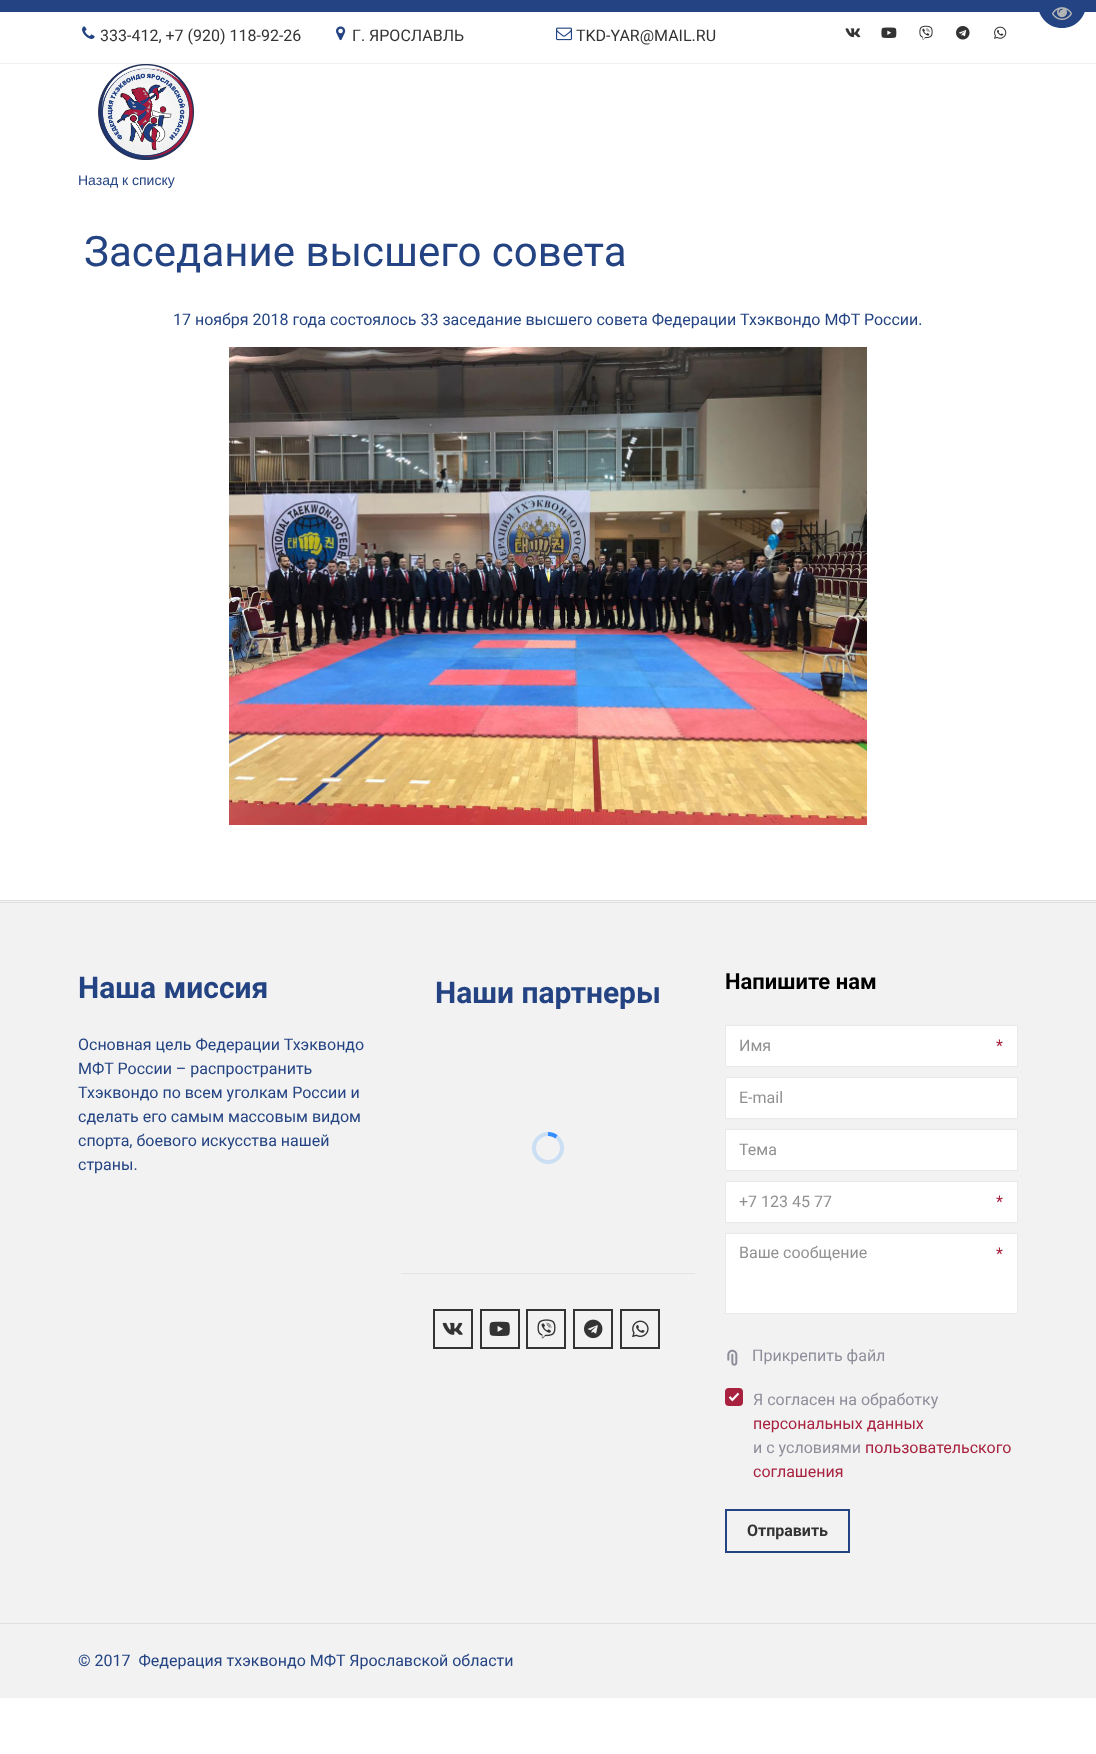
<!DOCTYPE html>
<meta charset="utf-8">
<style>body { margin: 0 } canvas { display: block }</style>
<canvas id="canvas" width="1096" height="1754"></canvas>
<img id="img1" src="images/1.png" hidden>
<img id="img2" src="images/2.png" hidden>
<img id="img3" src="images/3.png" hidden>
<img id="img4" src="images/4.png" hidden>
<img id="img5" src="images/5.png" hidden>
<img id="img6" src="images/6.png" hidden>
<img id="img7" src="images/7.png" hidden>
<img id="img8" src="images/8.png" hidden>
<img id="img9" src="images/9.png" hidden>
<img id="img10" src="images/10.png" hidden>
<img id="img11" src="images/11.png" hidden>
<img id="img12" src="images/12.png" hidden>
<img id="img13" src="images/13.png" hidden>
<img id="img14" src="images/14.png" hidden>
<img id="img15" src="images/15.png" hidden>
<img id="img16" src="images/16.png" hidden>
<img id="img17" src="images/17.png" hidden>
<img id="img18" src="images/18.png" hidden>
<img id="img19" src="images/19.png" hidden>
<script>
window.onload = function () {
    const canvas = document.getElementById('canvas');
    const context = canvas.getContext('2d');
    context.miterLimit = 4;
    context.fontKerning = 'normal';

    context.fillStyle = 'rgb(255, 255, 255)';
    context.fillRect(0, 0, 1096, 1754);
    context.fillStyle = 'rgb(35, 67, 130)';
    context.fillRect(0, 0, 1096, 12);
    context.beginPath();
    context.moveTo(1038, -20);
    context.lineTo(1086, -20);
    context.lineTo(1086, 4);
    context.bezierCurveTo(1086, 17.5, 1075.5, 28, 1062, 28);
    context.bezierCurveTo(1048.5, 28, 1038, 17.5, 1038, 4);
    context.closePath();
    context.fill();
    context.drawImage(document.getElementById('img1'), 1052, 7, 20, 13);
    context.fillStyle = 'rgb(242, 242, 242)';
    context.fillRect(0, 63, 1096, 1);
    context.drawImage(document.getElementById('img2'), 82, 26, 13, 13);
    context.drawImage(document.getElementById('img3'), 336, 26, 10, 15);
    context.drawImage(document.getElementById('img4'), 556, 27, 16, 14);
    context.drawImage(document.getElementById('img5'), 845, 28, 16, 10);
    context.drawImage(document.getElementById('img6'), 881, 27, 16, 11);
    context.drawImage(document.getElementById('img7'), 919, 25, 14, 15);
    context.drawImage(document.getElementById('img8'), 956, 26, 14, 14);
    context.drawImage(document.getElementById('img9'), 994, 26, 13, 13);
    context.drawImage(document.getElementById('img10'), 98, 64, 96, 96);
    context.drawImage(document.getElementById('img11'), 229, 347, 638, 478);
    context.fillRect(0, 901, 1096, 1);
    context.fillStyle = 'rgb(224, 224, 224)';
    context.fillRect(0, 900, 1096, 1);
    context.fillRect(0, 902, 1096, 1);
    context.fillStyle = 'rgb(242, 242, 242)';
    context.fillRect(0, 903, 1096, 720);
    context.fillStyle = 'rgb(228, 228, 228)';
    context.fillRect(401, 1273, 294, 1);
    context.drawImage(document.getElementById('img12'), 532, 1132, 32, 32);
    context.strokeStyle = 'rgb(51, 51, 51)';
    context.lineWidth = 2;
    context.strokeRect(434, 1310, 38, 38);
    context.drawImage(document.getElementById('img13'), 442, 1322, 21, 13);
    context.strokeRect(481, 1310, 38, 38);
    context.drawImage(document.getElementById('img14'), 489, 1321, 21, 15);
    context.strokeRect(527, 1310, 38, 38);
    context.drawImage(document.getElementById('img15'), 537, 1319, 19, 20);
    context.strokeRect(574, 1310, 38, 38);
    context.drawImage(document.getElementById('img16'), 584, 1319, 19, 20);
    context.strokeRect(621, 1310, 38, 38);
    context.drawImage(document.getElementById('img17'), 632, 1320, 17, 18);
    context.fillStyle = 'rgb(255, 255, 255)';
    context.beginPath();
    context.rect(725.5, 1025.5, 292, 41);
    context.fill();
    context.strokeStyle = 'rgb(233, 233, 233)';
    context.lineWidth = 1;
    context.stroke();
    context.beginPath();
    context.rect(725.5, 1077.5, 292, 41);
    context.fill();
    context.stroke();
    context.beginPath();
    context.rect(725.5, 1129.5, 292, 41);
    context.fill();
    context.stroke();
    context.beginPath();
    context.rect(725.5, 1181.5, 292, 41);
    context.fill();
    context.stroke();
    context.beginPath();
    context.rect(725.5, 1233.5, 292, 80);
    context.fill();
    context.stroke();
    context.drawImage(document.getElementById('img18'), 727, 1349, 11, 17);
    context.fillStyle = 'rgb(168, 33, 62)';
    context.beginPath();
    context.roundRect(725, 1388, 18, 18, 4);
    context.fill();
    context.drawImage(document.getElementById('img19'), 728, 1392, 12, 10);
    context.strokeStyle = 'rgb(35, 67, 130)';
    context.lineWidth = 2;
    context.strokeRect(726, 1510, 123, 42);
    context.fillStyle = 'rgb(242, 242, 242)';
    context.fillRect(0, 1624, 1096, 74);
    context.fillStyle = 'rgb(224, 224, 224)';
    context.fillRect(0, 1623, 1096, 1);
    context.font = '16px Roboto';
    context.fillStyle = 'rgb(51, 51, 51)';
    context.fillText('333-412, +7 (920) 118-92-26', 100, 41);
    context.fillText('Г. ЯРОСЛАВЛЬ', 352, 41);
    context.fillText('TKD-YAR@MAIL.RU', 576, 41);
    context.font = '14px Liberation Sans';
    context.fillStyle = 'rgb(35, 67, 130)';
    context.fillText('Назад к списку', 78, 185);
    context.font = '42px Roboto';
    context.fillText('Заседание высшего совета', 84, 266);
    context.font = '16px Roboto';
    context.fillText('17 ноября 2018 года состоялось 33 заседание высшего совета Федерации Тхэквондо МФТ России.', 173, 325);
    context.font = 'bold 30px Roboto';
    context.fillText('Наша миссия', 78, 998);
    context.font = '16px Roboto';
    context.fillText('Основная цель Федерации Тхэквондо', 78, 1050);
    context.fillText('МФТ России – распространить', 78, 1074);
    context.fillText('Тхэквондо по всем уголкам России и', 78, 1098);
    context.fillText('сделать его самым массовым видом', 78, 1122);
    context.fillText('спорта, боевого искусства нашей', 78, 1146);
    context.fillText('страны.', 78, 1170);
    context.font = 'bold 30px Roboto';
    context.fillText('Наши партнеры', 435, 1003);
    context.font = 'bold 22px Roboto';
    context.fillStyle = 'rgb(0, 0, 0)';
    context.fillText('Напишите нам', 725, 989);
    context.font = '16px Roboto';
    context.fillStyle = 'rgb(145, 145, 146)';
    context.fillText('Имя', 739, 1051);
    context.fillStyle = 'rgb(168, 33, 62)';
    context.fillText('*', 996, 1051);
    context.fillStyle = 'rgb(145, 145, 146)';
    context.fillText('E-mail', 739, 1103);
    context.fillText('Тема', 739, 1155);
    context.fillText('+7 123 45 77', 739, 1207);
    context.fillStyle = 'rgb(168, 33, 62)';
    context.fillText('*', 996, 1207);
    context.fillStyle = 'rgb(145, 145, 146)';
    context.fillText('Ваше сообщение', 739, 1258);
    context.fillStyle = 'rgb(168, 33, 62)';
    context.fillText('*', 996, 1259);
    context.fillStyle = 'rgb(142, 142, 155)';
    context.fillText('Прикрепить файл', 752, 1361);
    context.fillText('Я согласен на обработку', 753, 1405);
    context.fillStyle = 'rgb(168, 33, 62)';
    context.fillText('персональных данных', 753, 1429);
    context.fillStyle = 'rgb(142, 142, 155)';
    context.fillText('и с условиями', 753, 1453);
    context.fillStyle = 'rgb(168, 33, 62)';
    context.fillText('пользовательского', 865, 1453);
    context.fillText('соглашения', 753, 1477);
    context.font = 'bold 16px Roboto';
    context.fillStyle = 'rgb(51, 51, 51)';
    context.fillText('Отправить', 747, 1536);
    context.font = '16px Roboto';
    context.fillStyle = 'rgb(35, 67, 130)';
    context.fillText('© 2017  Федерация тхэквондо МФТ Ярославской области', 78, 1666);
};
</script>
